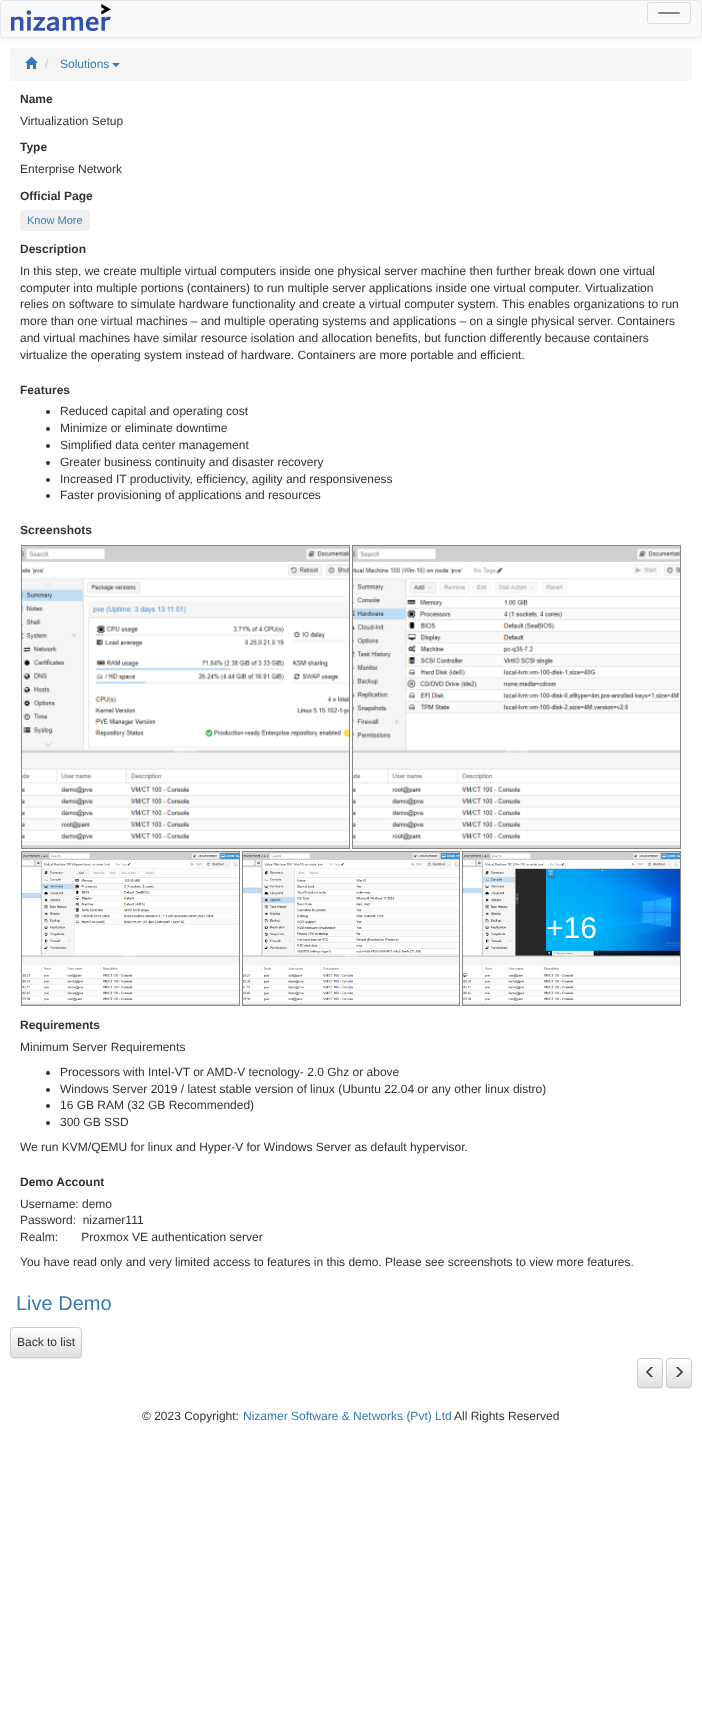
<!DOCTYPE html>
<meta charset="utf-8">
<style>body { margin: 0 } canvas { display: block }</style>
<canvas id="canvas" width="702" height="1726"></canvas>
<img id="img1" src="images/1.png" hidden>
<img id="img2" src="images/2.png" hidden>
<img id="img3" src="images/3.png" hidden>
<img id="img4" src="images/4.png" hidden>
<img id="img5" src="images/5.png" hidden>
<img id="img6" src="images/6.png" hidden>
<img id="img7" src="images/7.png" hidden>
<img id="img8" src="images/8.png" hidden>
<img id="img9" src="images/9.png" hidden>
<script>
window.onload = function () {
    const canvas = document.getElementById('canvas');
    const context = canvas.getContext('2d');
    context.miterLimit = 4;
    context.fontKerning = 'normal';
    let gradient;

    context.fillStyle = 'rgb(255, 255, 255)';
    context.fillRect(0, 0, 702, 1726);
    context.fillStyle = 'rgba(0, 0, 0, 0.07)';
    context.filter = 'blur(2.5px)';
    context.beginPath();
    context.roundRect(0, 1, 702, 38, 3);
    context.fill();
    context.filter = 'none';
    context.fillStyle = 'rgb(248, 249, 250)';
    context.beginPath();
    context.roundRect(0.5, 0.5, 701, 37, 2.5);
    context.fill();
    context.strokeStyle = 'rgb(229, 232, 236)';
    context.stroke();
    context.drawImage(document.getElementById('img1'), 11, 4, 100, 27);
    context.beginPath();
    context.roundRect(647.5, 2.5, 43, 21, 2.5);
    context.strokeStyle = 'rgb(221, 221, 221)';
    context.stroke();
    context.fillStyle = 'rgb(136, 136, 136)';
    context.beginPath();
    context.roundRect(658, 12, 22, 2, 1);
    context.fill();
    context.fillStyle = 'rgb(245, 245, 245)';
    context.beginPath();
    context.roundRect(10, 48, 682, 33, 3);
    context.fill();
    context.drawImage(document.getElementById('img2'), 25, 56, 13, 13);
    context.fillStyle = 'rgb(51, 122, 183)';
    context.beginPath();
    context.moveTo(112, 63);
    context.lineTo(120, 63);
    context.lineTo(116, 67);
    context.closePath();
    context.fill();
    context.fillStyle = 'rgb(239, 239, 239)';
    context.beginPath();
    context.roundRect(20, 210, 70, 21, 4);
    context.fill();
    context.fillStyle = 'rgb(51, 51, 51)';
    context.beginPath();
    context.arc(48, 412, 2, 0, 2 * Math.PI);
    context.fill();
    context.beginPath();
    context.arc(48, 429, 2, 0, 2 * Math.PI);
    context.fill();
    context.beginPath();
    context.arc(48, 446, 2, 0, 2 * Math.PI);
    context.fill();
    context.beginPath();
    context.arc(48, 463, 2, 0, 2 * Math.PI);
    context.fill();
    context.beginPath();
    context.arc(48, 480, 2, 0, 2 * Math.PI);
    context.fill();
    context.beginPath();
    context.arc(48, 496, 2, 0, 2 * Math.PI);
    context.fill();
    context.strokeStyle = 'rgb(136, 136, 136)';
    context.strokeRect(21.5, 545.5, 328, 303);
    context.drawImage(document.getElementById('img3'), 22, 546, 327, 302);
    context.strokeRect(352.5, 545.5, 328, 303);
    context.drawImage(document.getElementById('img4'), 353, 546, 327, 302);
    context.strokeRect(21.5, 851.5, 218, 154);
    context.drawImage(document.getElementById('img5'), 22, 852, 217, 153);
    context.strokeRect(242.5, 851.5, 217, 154);
    context.drawImage(document.getElementById('img6'), 243, 852, 216, 153);
    context.strokeRect(462.5, 851.5, 218, 154);
    context.drawImage(document.getElementById('img7'), 463, 852, 217, 153);
    context.beginPath();
    context.arc(48, 1073, 2, 0, 2 * Math.PI);
    context.fill();
    context.beginPath();
    context.arc(48, 1090, 2, 0, 2 * Math.PI);
    context.fill();
    context.beginPath();
    context.arc(48, 1106, 2, 0, 2 * Math.PI);
    context.fill();
    context.beginPath();
    context.arc(48, 1123, 2, 0, 2 * Math.PI);
    context.fill();
    context.fillStyle = 'rgba(0, 0, 0, 0.07)';
    context.filter = 'blur(0.5px)';
    context.beginPath();
    context.roundRect(10, 1328, 72, 31, 4);
    context.fill();
    context.filter = 'none';
    context.save();
    context.beginPath();
    context.roundRect(10, 1327, 72, 31, 4);
    context.clip();
    gradient = context.createLinearGradient(46, 1328, 46, 1357);
    gradient.addColorStop(0, 'rgb(255, 255, 255)');
    gradient.addColorStop(1, 'rgb(224, 224, 224)');
    context.fillStyle = gradient;
    context.fillRect(10, 1328, 72, 29);
    context.restore();
    context.beginPath();
    context.roundRect(10.5, 1327.5, 71, 30, 3.5);
    context.strokeStyle = 'rgb(204, 204, 204)';
    context.stroke();
    context.filter = 'blur(0.5px)';
    context.beginPath();
    context.roundRect(637, 1359, 26, 30, 4);
    context.fill();
    context.filter = 'none';
    context.save();
    context.beginPath();
    context.roundRect(637, 1358, 26, 30, 4);
    context.clip();
    gradient = context.createLinearGradient(650, 1359, 650, 1387);
    gradient.addColorStop(0, 'rgb(255, 255, 255)');
    gradient.addColorStop(1, 'rgb(224, 224, 224)');
    context.fillStyle = gradient;
    context.fillRect(637, 1359, 26, 28);
    context.restore();
    context.beginPath();
    context.roundRect(637.5, 1358.5, 25, 29, 3.5);
    context.stroke();
    context.drawImage(document.getElementById('img8'), 646, 1367, 7, 10);
    context.filter = 'blur(0.5px)';
    context.beginPath();
    context.roundRect(666, 1359, 26, 30, 4);
    context.fill();
    context.filter = 'none';
    context.save();
    context.beginPath();
    context.roundRect(666, 1358, 26, 30, 4);
    context.clip();
    gradient = context.createLinearGradient(679, 1359, 679, 1387);
    gradient.addColorStop(0, 'rgb(255, 255, 255)');
    gradient.addColorStop(1, 'rgb(224, 224, 224)');
    context.fillStyle = gradient;
    context.fillRect(666, 1359, 26, 28);
    context.restore();
    context.beginPath();
    context.roundRect(666.5, 1358.5, 25, 29, 3.5);
    context.stroke();
    context.drawImage(document.getElementById('img9'), 676, 1367, 7, 10);
    context.font = '12px Liberation Sans';
    context.fillStyle = 'rgb(204, 204, 204)';
    context.fillText('/', 45, 68);
    context.fillStyle = 'rgb(51, 122, 183)';
    context.fillText('Solutions', 60, 68);
    context.font = 'bold 12px Liberation Sans';
    context.fillStyle = 'rgb(51, 51, 51)';
    context.fillText('Name', 20, 103);
    context.font = '12px Liberation Sans';
    context.fillText('Virtualization Setup', 20, 125);
    context.font = 'bold 12px Liberation Sans';
    context.fillText('Type', 20, 151);
    context.font = '12px Liberation Sans';
    context.fillText('Enterprise Network', 20, 173);
    context.font = 'bold 12px Liberation Sans';
    context.fillText('Official Page', 20, 200);
    context.font = '11px Liberation Sans';
    context.fillStyle = 'rgb(51, 122, 183)';
    context.fillText('Know More', 27, 224);
    context.font = 'bold 12px Liberation Sans';
    context.fillStyle = 'rgb(51, 51, 51)';
    context.fillText('Description', 20, 253);
    context.font = '12px Liberation Sans';
    context.fillText('In this step, we create multiple virtual computers inside one physical server machine then further break down one virtual', 20, 275);
    context.fillText('computer into multiple portions (containers) to run multiple server applications inside one virtual computer. Virtualization', 20, 292);
    context.fillText('relies on software to simulate hardware functionality and create a virtual computer system. This enables organizations to run', 20, 308);
    context.fillText('more than one virtual machines – and multiple operating systems and applications – on a single physical server. Containers', 20, 325);
    context.fillText('and virtual machines have similar resource isolation and allocation benefits, but function differently because containers', 20, 342);
    context.fillText('virtualize the operating system instead of hardware. Containers are more portable and efficient.', 20, 359);
    context.font = 'bold 12px Liberation Sans';
    context.fillText('Features', 20, 394);
    context.font = '12px Liberation Sans';
    context.fillText('Reduced capital and operating cost', 60, 415);
    context.fillText('Minimize or eliminate downtime', 60, 432);
    context.fillText('Simplified data center management', 60, 449);
    context.fillText('Greater business continuity and disaster recovery', 60, 466);
    context.fillText('Increased IT productivity, efficiency, agility and responsiveness', 60, 483);
    context.fillText('Faster provisioning of applications and resources', 60, 499);
    context.font = 'bold 12px Liberation Sans';
    context.fillText('Screenshots', 20, 534);
    context.font = '30px Liberation Sans';
    context.fillStyle = 'rgb(255, 255, 255)';
    context.fillText('+16', 546, 938);
    context.font = 'bold 12px Liberation Sans';
    context.fillStyle = 'rgb(51, 51, 51)';
    context.fillText('Requirements', 20, 1029);
    context.font = '12px Liberation Sans';
    context.fillText('Minimum Server Requirements', 20, 1051);
    context.fillText('Processors with Intel-VT or AMD-V tecnology- 2.0 Ghz or above', 60, 1076);
    context.fillText('Windows Server 2019 / latest stable version of linux (Ubuntu 22.04 or any other linux distro)', 60, 1093);
    context.fillText('16 GB RAM (32 GB Recommended)', 60, 1109);
    context.fillText('300 GB SSD', 60, 1126);
    context.fillText('We run KVM/QEMU for linux and Hyper-V for Windows Server as default hypervisor.', 20, 1151);
    context.font = 'bold 12px Liberation Sans';
    context.fillText('Demo Account', 20, 1186);
    context.font = '12px Liberation Sans';
    context.fillText('Username: demo', 20, 1208);
    context.fillText('Password:  nizamer111', 20, 1224);
    context.fillText('Realm:       Proxmox VE authentication server', 20, 1241);
    context.fillText('You have read only and very limited access to features in this demo. Please see screenshots to view more features.', 20, 1266);
    context.font = '20px Liberation Sans';
    context.fillStyle = 'rgb(51, 122, 183)';
    context.fillText('Live Demo', 16, 1310);
    context.font = '12px Liberation Sans';
    context.fillStyle = 'rgb(51, 51, 51)';
    context.fillText('Back to list', 17, 1346);
    context.fillText('© 2023 Copyright:', 142, 1420);
    context.fillStyle = 'rgb(51, 122, 183)';
    context.fillText('Nizamer Software & Networks (Pvt) Ltd', 243, 1420);
    context.fillStyle = 'rgb(51, 51, 51)';
    context.fillText('All Rights Reserved', 454, 1420);
};
</script>
